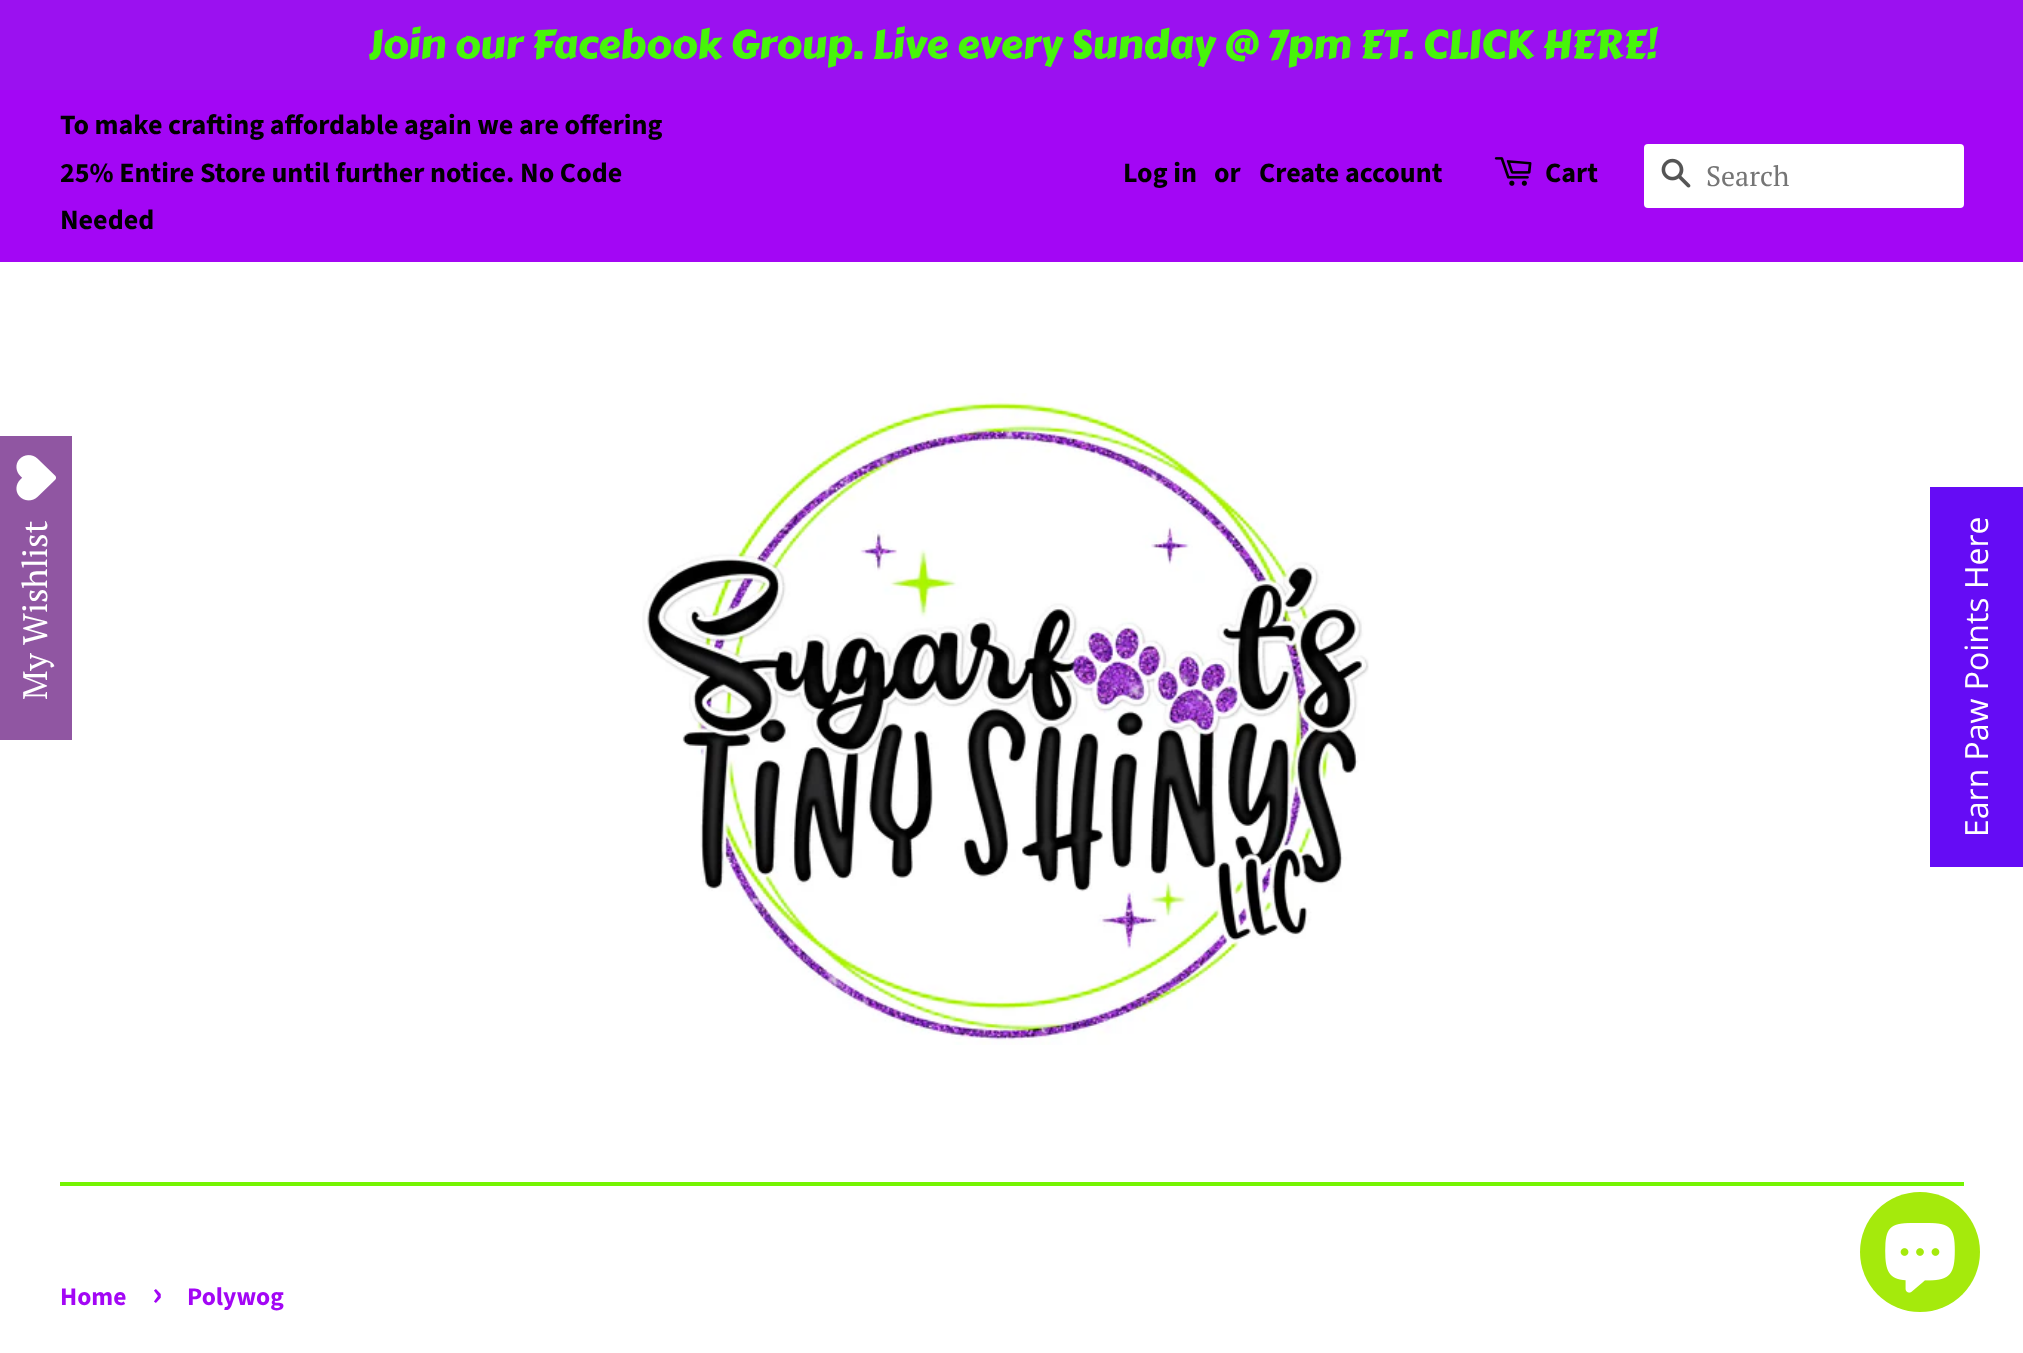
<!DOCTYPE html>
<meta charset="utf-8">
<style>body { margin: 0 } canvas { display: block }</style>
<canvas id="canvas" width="2023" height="1353"></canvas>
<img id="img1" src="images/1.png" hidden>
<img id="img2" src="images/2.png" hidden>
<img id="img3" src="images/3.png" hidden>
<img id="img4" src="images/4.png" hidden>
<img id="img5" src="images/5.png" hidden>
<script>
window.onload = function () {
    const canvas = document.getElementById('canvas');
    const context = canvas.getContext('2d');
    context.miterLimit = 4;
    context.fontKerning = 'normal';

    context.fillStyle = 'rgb(255, 255, 255)';
    context.fillRect(0, 0, 2023, 1353);
    context.fillStyle = 'rgb(155, 17, 240)';
    context.fillRect(0, 0, 2023, 90);
    context.fillStyle = 'rgb(163, 6, 245)';
    context.fillRect(0, 90, 2023, 172);
    context.drawImage(document.getElementById('img1'), 1494, 157, 38, 29);
    context.fillStyle = 'rgb(255, 255, 255)';
    context.beginPath();
    context.roundRect(1644, 144, 320, 64, 4);
    context.fill();
    context.drawImage(document.getElementById('img2'), 1661, 158, 30, 30);
    context.drawImage(document.getElementById('img3'), 642, 393, 727, 652);
    context.fillStyle = 'rgb(117, 244, 2)';
    context.fillRect(60, 1182, 1904, 4);
    context.fillStyle = 'rgb(144, 86, 162)';
    context.fillRect(0, 436, 72, 304);
    context.drawImage(document.getElementById('img4'), 16, 455, 40, 46);
    context.fillStyle = 'rgb(101, 12, 245)';
    context.fillRect(1930, 487, 93, 380);
    context.fillStyle = 'rgb(165, 234, 12)';
    context.beginPath();
    context.arc(1920, 1252, 60, 0, 2 * Math.PI);
    context.fill();
    context.drawImage(document.getElementById('img5'), 1885, 1223, 70, 70);
    context.font = '40px Carter One';
    context.fillStyle = 'rgb(71, 245, 10)';
    context.fillText('Join our Facebook Group. Live every Sunday @ 7pm ET. CLICK HERE!', 368, 58);
    context.font = 'bold 28px Source Sans Pro';
    context.fillStyle = 'rgb(0, 0, 0)';
    context.fillText('To make crafting affordable again we are offering', 60, 134);
    context.fillText('25% Entire Store until further notice. No Code', 60, 182);
    context.fillText('Needed', 60, 229);
    context.fillText('Log in', 1123, 182);
    context.fillText('or', 1214, 182);
    context.fillText('Create account', 1259, 182);
    context.fillText('Cart', 1545, 182);
    context.font = '28px PT Serif';
    context.fillStyle = 'rgb(117, 117, 117)';
    context.fillText('Search', 1706, 186);
    context.font = '34px PT Serif';
    context.fillStyle = 'rgb(255, 255, 255)';
    context.save();
    context.translate(47, 700);
    context.rotate(-90 * Math.PI / 180);
    context.fillText('My Wishlist', 0, 0);
    context.restore();
    context.font = '32px Open Sans';
    context.save();
    context.translate(1988, 837);
    context.rotate(-90 * Math.PI / 180);
    context.fillText('Earn Paw Points Here', 0, 0);
    context.restore();
    context.font = 'bold 25.5px Source Sans Pro';
    context.fillStyle = 'rgb(163, 6, 245)';
    context.fillText('Home', 60, 1305);
    context.font = 'bold 36px Source Sans Pro';
    context.fillText('›', 152, 1305);
    context.font = 'bold 25.5px Source Sans Pro';
    context.fillText('Polywog', 187, 1305);
};
</script>
